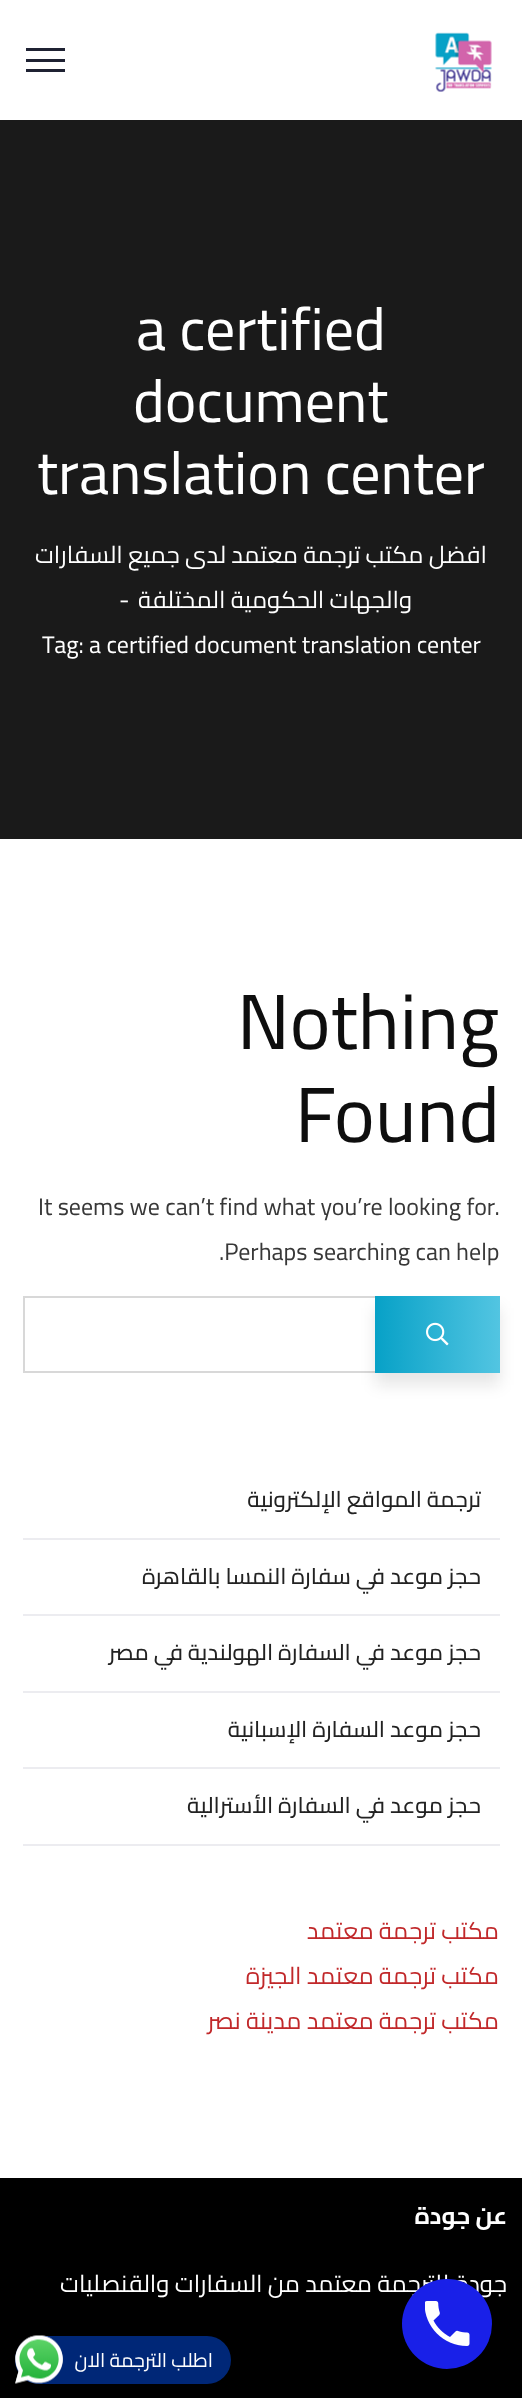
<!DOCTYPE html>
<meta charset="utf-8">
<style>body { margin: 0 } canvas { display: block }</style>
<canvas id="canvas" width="522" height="2398"></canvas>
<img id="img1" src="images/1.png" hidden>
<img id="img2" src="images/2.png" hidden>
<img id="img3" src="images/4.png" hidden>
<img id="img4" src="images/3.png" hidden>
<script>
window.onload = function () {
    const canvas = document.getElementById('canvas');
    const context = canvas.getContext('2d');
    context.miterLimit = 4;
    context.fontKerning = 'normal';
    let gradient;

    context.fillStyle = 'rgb(255, 255, 255)';
    context.fillRect(0, 0, 522, 2398);
    context.drawImage(document.getElementById('img1'), 435, 32, 57, 60);
    context.fillStyle = 'rgb(31, 34, 51)';
    context.fillRect(26, 48, 39, 3);
    context.fillRect(26, 59, 39, 3);
    context.fillRect(26, 69, 39, 3);
    context.fillStyle = 'rgb(26, 26, 26)';
    context.fillRect(0, 120, 522, 719);
    context.strokeStyle = 'rgb(216, 216, 216)';
    context.lineWidth = 2;
    context.strokeRect(24, 1297, 475, 75);
    context.fillStyle = 'rgba(12, 12, 12, 0.1)';
    context.filter = 'blur(7.5px)';
    context.beginPath();
    context.rect(375, 1308, 125, 77);
    context.fill();
    context.filter = 'none';
    gradient = context.createLinearGradient(375, 1334, 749, 1334);
    gradient.addColorStop(0, 'rgb(7, 161, 199)');
    gradient.addColorStop(0.5, 'rgb(120, 215, 239)');
    gradient.addColorStop(1, 'rgb(7, 161, 199)');
    context.fillStyle = gradient;
    context.fillRect(375, 1296, 125, 77);
    context.drawImage(document.getElementById('img2'), 426, 1322, 23, 24);
    context.fillStyle = 'rgb(236, 236, 240)';
    context.fillRect(23, 1538, 477, 2);
    context.fillRect(23, 1614, 477, 2);
    context.fillRect(23, 1691, 477, 2);
    context.fillRect(23, 1767, 477, 2);
    context.fillRect(23, 1844, 477, 2);
    context.fillStyle = 'rgb(0, 0, 0)';
    context.fillRect(0, 2178, 522, 220);
    context.fillStyle = 'rgb(0, 39, 119)';
    context.beginPath();
    context.roundRect(15, 2336, 216, 48, 24);
    context.fill();
    context.drawImage(document.getElementById('img3'), 15, 2335, 48, 49);
    context.font = '60px Cairo';
    context.fillStyle = 'rgb(255, 255, 255)';
    context.fillText('a certified', 136, 350);
    context.fillText('document', 133, 422);
    context.fillText('translation center', 37, 494);
    context.direction = 'rtl';
    context.font = '24px Cairo';
    context.fillText('افضل مكتب ترجمة معتمد لدى جميع السفارات', 487, 563);
    context.fillText('والجهات الحكومية المختلفة', 412, 608);
    context.direction = 'ltr';
    context.fillText('-', 119, 608);
    context.fillText('Tag: a certified document translation center', 42, 653);
    context.font = '78px Cairo';
    context.fillStyle = 'rgb(14, 14, 14)';
    context.fillText('Nothing', 237, 1049);
    context.fillText('Found', 295, 1142);
    context.font = '24px Cairo';
    context.fillStyle = 'rgb(56, 56, 56)';
    context.fillText('It seems we can’t find what you’re looking for.', 38, 1215);
    context.fillText('.Perhaps searching can help', 219, 1260);
    context.direction = 'rtl';
    context.font = '500 22.5px Cairo';
    context.fillStyle = 'rgb(34, 34, 34)';
    context.fillText('ترجمة المواقع الإلكترونية', 481, 1507);
    context.fillText('حجز موعد في سفارة النمسا بالقاهرة', 481, 1584);
    context.fillText('حجز موعد في السفارة الهولندية في مصر', 481, 1660);
    context.fillText('حجز موعد السفارة الإسبانية', 481, 1737);
    context.fillText('حجز موعد في السفارة الأسترالية', 481, 1813);
    context.font = '24px Cairo';
    context.fillStyle = 'rgb(193, 40, 42)';
    context.fillText('مكتب ترجمة معتمد', 499, 1939);
    context.fillText('مكتب ترجمة معتمد الجيزة', 499, 1984);
    context.fillText('مكتب ترجمة معتمد مدينة نصر', 499, 2029);
    context.font = 'bold 24px Cairo';
    context.fillStyle = 'rgb(255, 255, 255)';
    context.fillText('عن جودة', 507, 2224);
    context.font = '24px Cairo';
    context.fillText('جودة للترجمة معتمد من السفارات والقنصليات', 507, 2292);
    context.fillStyle = 'rgb(25, 32, 232)';
    context.beginPath();
    context.arc(447, 2324, 45, 0, 2 * Math.PI);
    context.fill();
    context.drawImage(document.getElementById('img4'), 425, 2301, 45, 45);
    context.font = '19.5px Cairo';
    context.fillStyle = 'rgb(255, 255, 255)';
    context.fillText('اطلب الترجمة الان', 213, 2367);
};
</script>
